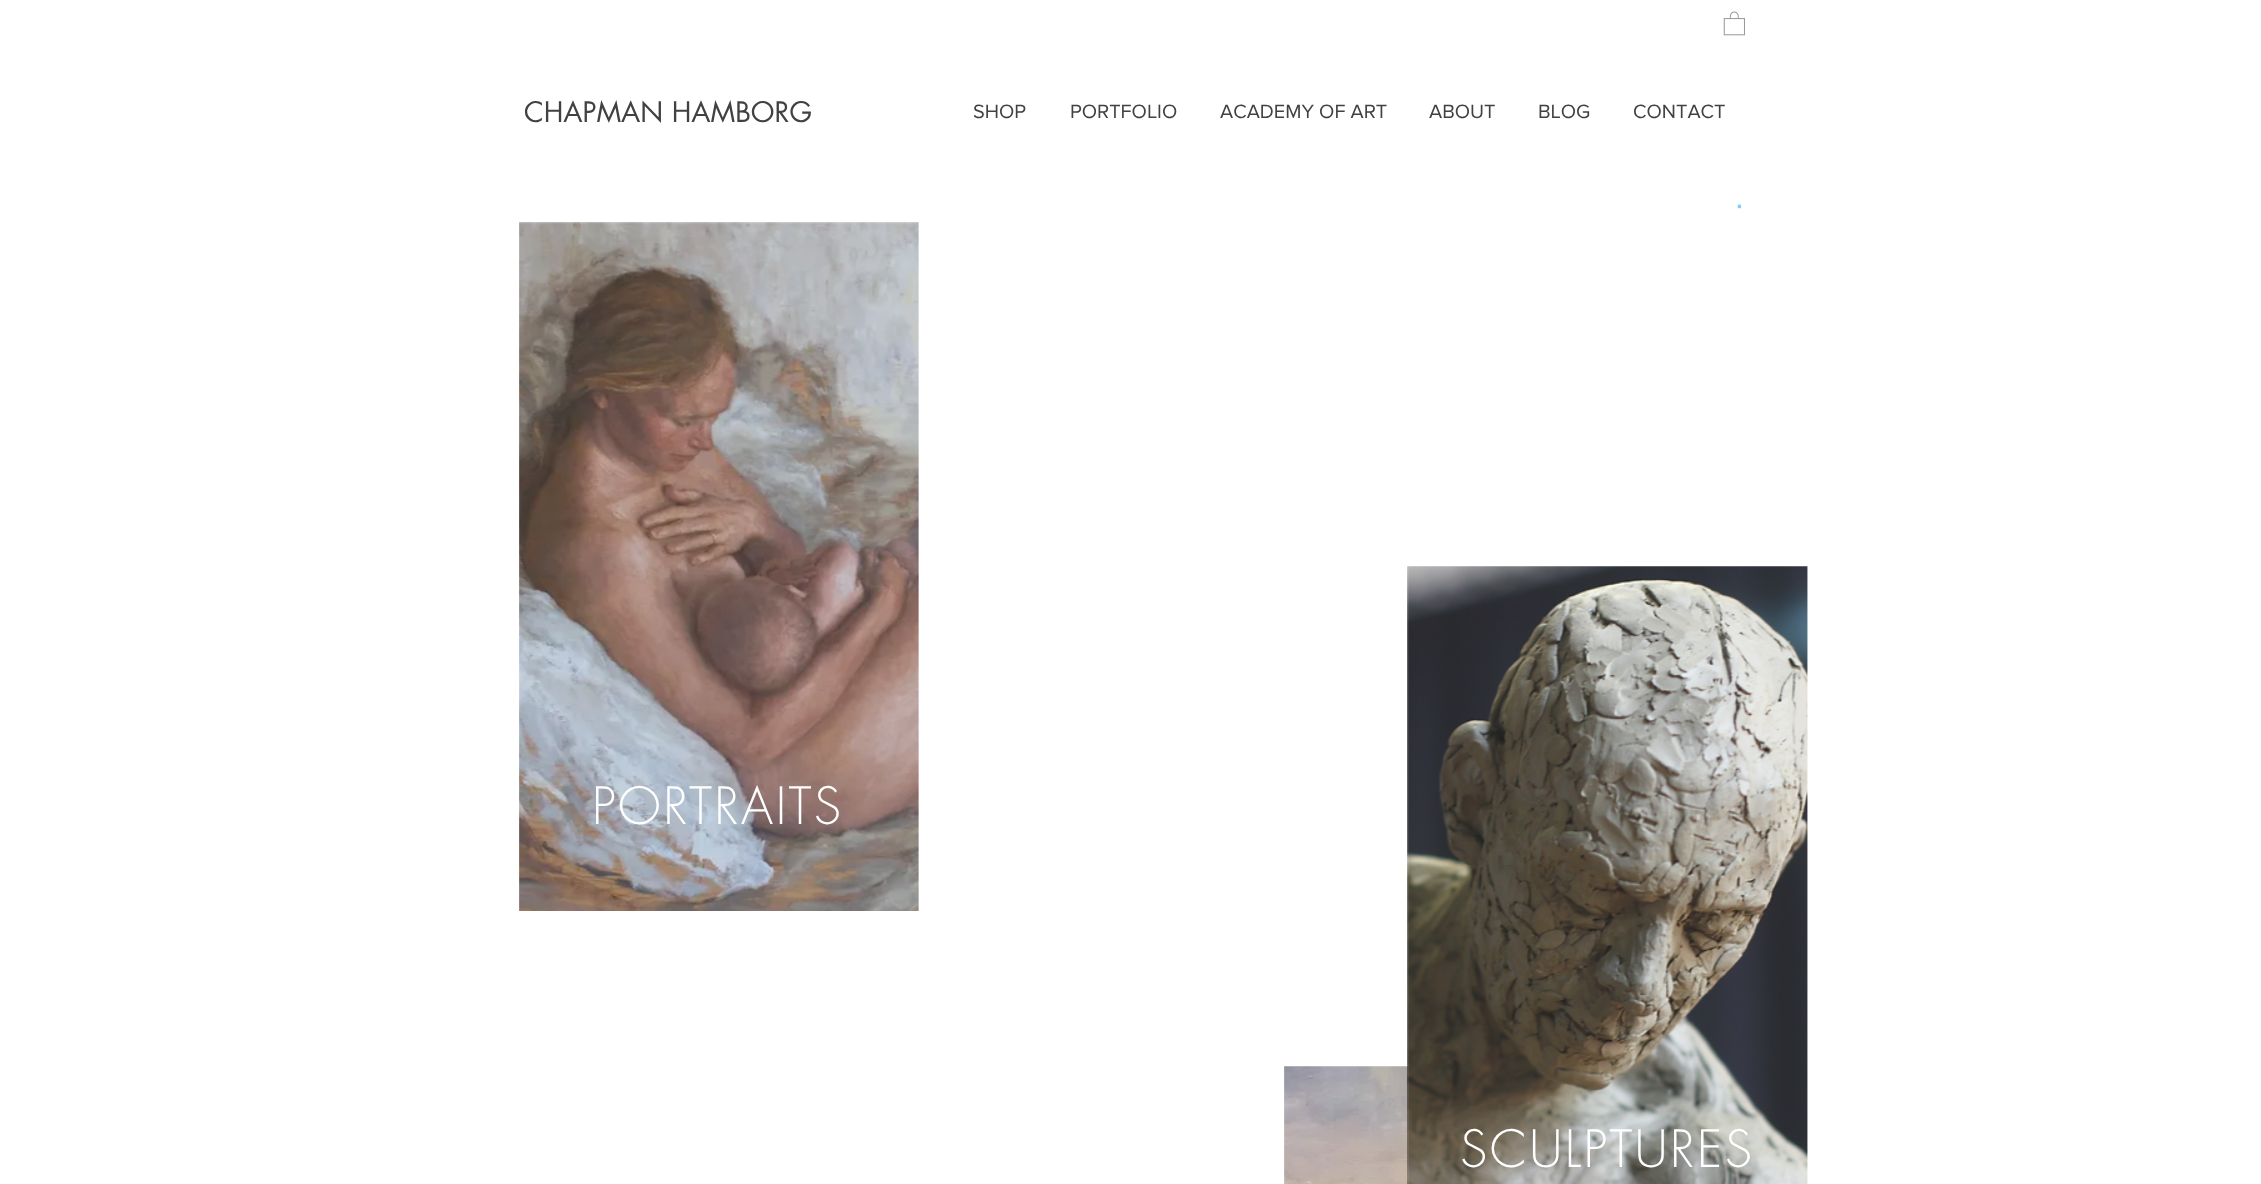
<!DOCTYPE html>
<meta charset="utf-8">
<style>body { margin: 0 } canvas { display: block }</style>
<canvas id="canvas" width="2261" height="1184"></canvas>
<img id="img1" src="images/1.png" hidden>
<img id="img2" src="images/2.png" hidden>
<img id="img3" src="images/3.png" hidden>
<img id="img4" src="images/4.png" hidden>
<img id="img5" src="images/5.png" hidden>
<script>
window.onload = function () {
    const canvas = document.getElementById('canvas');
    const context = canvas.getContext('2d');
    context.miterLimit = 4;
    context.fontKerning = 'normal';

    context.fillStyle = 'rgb(255, 255, 255)';
    context.fillRect(0, 0, 2261, 1184);
    context.drawImage(document.getElementById('img1'), 1723, 11, 22, 25);
    context.drawImage(document.getElementById('img2'), 1737, 203, 5, 6);
    context.drawImage(document.getElementById('img3'), 519, 222, 400, 689);
    context.drawImage(document.getElementById('img4'), 1284, 1066, 124, 118);
    context.drawImage(document.getElementById('img5'), 1407, 566, 401, 618);
    context.font = '27.5px futura';
    context.fillStyle = 'rgb(65, 65, 65)';
    context.fillText('CHAPMAN HAMBORG', 524, 122);
    context.font = '20px "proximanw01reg"';
    context.fillText('SHOP', 973, 118);
    context.fillText('PORTFOLIO', 1070, 118);
    context.fillText('ACADEMY OF ART', 1220, 118);
    context.fillText('ABOUT', 1429, 118);
    context.fillText('BLOG', 1538, 118);
    context.fillText('CONTACT', 1633, 118);
    context.letterSpacing = '2.5px';
    context.font = '300 50px futura';
    context.fillStyle = 'rgb(255, 255, 255)';
    context.fillText('PORTRAITS', 592, 824);
    context.fillText('SCULPTURES', 1460, 1167);
};
</script>
